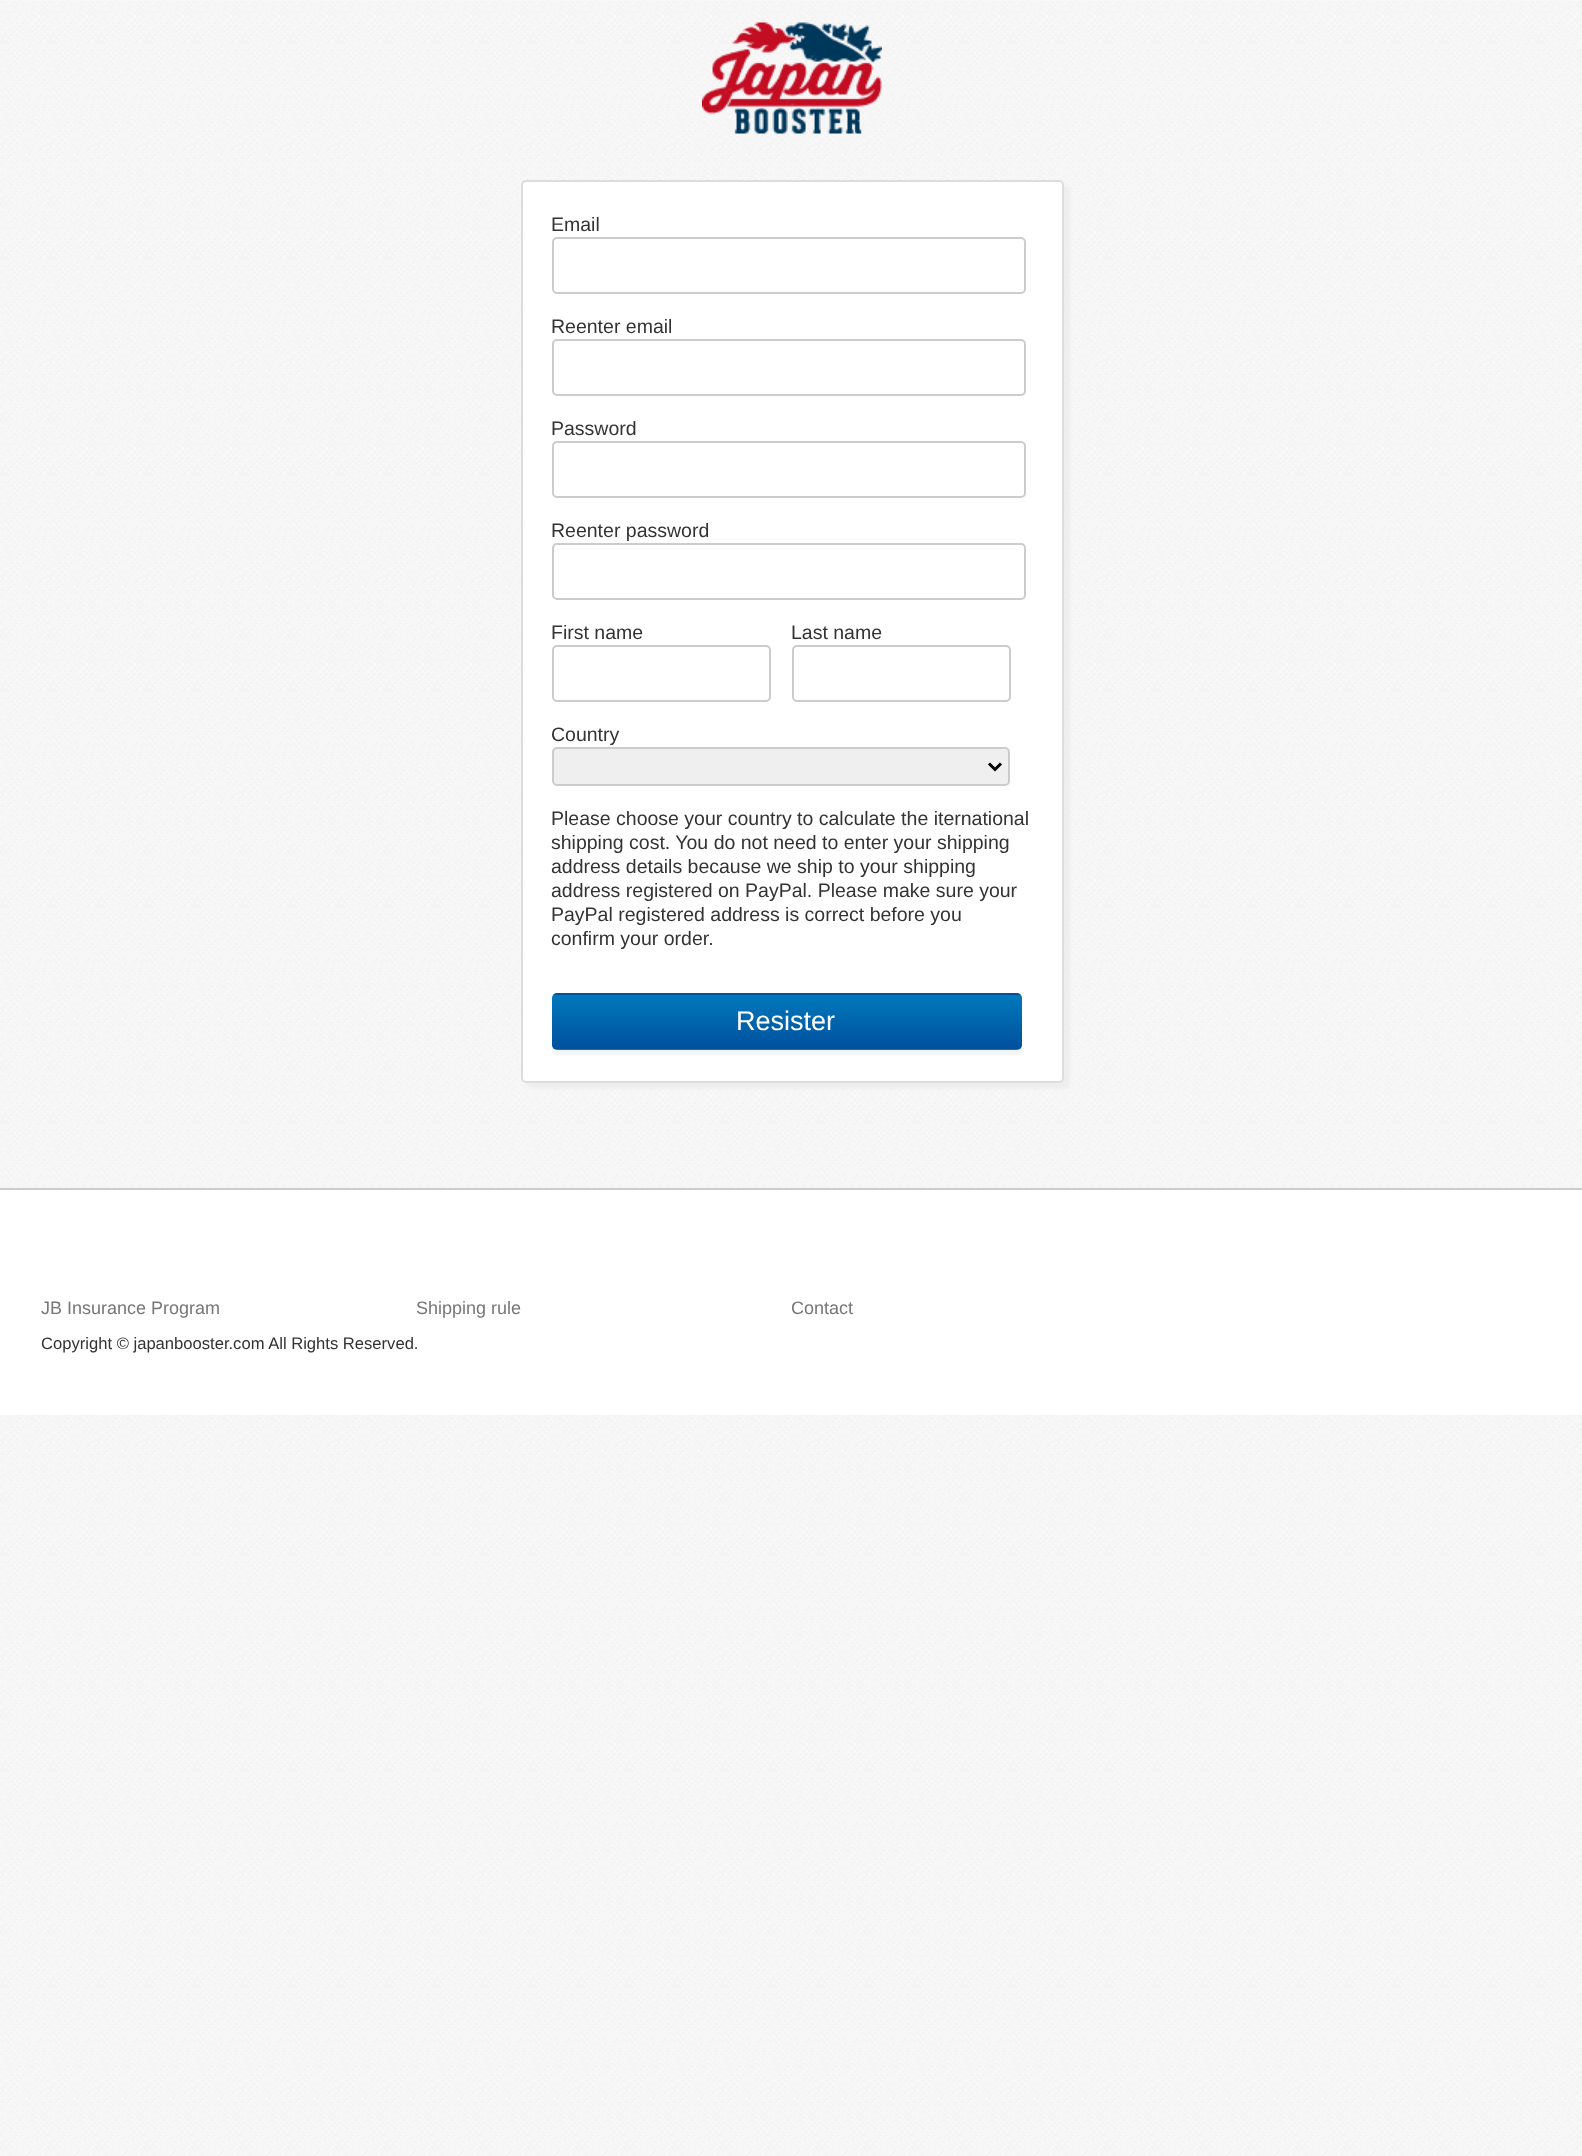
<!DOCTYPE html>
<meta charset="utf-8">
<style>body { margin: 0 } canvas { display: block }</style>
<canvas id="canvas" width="1582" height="2156"></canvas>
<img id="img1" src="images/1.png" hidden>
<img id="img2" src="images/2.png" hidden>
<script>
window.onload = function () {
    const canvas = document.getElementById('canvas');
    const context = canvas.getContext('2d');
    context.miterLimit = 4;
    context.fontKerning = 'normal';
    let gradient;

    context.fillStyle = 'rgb(248, 248, 248)';
    context.fillRect(0, 0, 1582, 2156);
    context.drawImage(document.getElementById('img1'), 0, 1, 1582, 2155);
    context.drawImage(document.getElementById('img2'), 702, 22, 180, 112);
    context.fillStyle = 'rgb(238, 238, 238)';
    context.filter = 'blur(1px)';
    context.beginPath();
    context.roundRect(527, 186, 543, 903, 5);
    context.fill();
    context.filter = 'none';
    context.fillStyle = 'rgb(255, 255, 255)';
    context.beginPath();
    context.roundRect(522, 181, 541, 901, 4);
    context.fill();
    context.strokeStyle = 'rgb(221, 221, 221)';
    context.lineWidth = 2;
    context.stroke();
    context.beginPath();
    context.roundRect(553, 238, 472, 55, 4);
    context.strokeStyle = 'rgb(204, 204, 204)';
    context.stroke();
    context.beginPath();
    context.roundRect(553, 340, 472, 55, 4);
    context.stroke();
    context.beginPath();
    context.roundRect(553, 442, 472, 55, 4);
    context.stroke();
    context.beginPath();
    context.roundRect(553, 544, 472, 55, 4);
    context.stroke();
    context.beginPath();
    context.roundRect(553, 646, 217, 55, 4);
    context.stroke();
    context.beginPath();
    context.roundRect(793, 646, 217, 55, 4);
    context.stroke();
    context.fillStyle = 'rgb(239, 239, 239)';
    context.beginPath();
    context.roundRect(553, 748, 456, 37, 4);
    context.fill();
    context.stroke();
    context.beginPath();
    context.moveTo(989, 763.5);
    context.lineTo(995, 769.5);
    context.lineTo(1001, 763.5);
    context.strokeStyle = 'rgb(0, 0, 0)';
    context.lineWidth = 3;
    context.stroke();
    context.fillStyle = 'rgb(245, 245, 245)';
    context.beginPath();
    context.moveTo(552, 1046);
    context.lineTo(552, 1050);
    context.bezierCurveTo(552, 1053, 554, 1055, 557, 1055);
    context.lineTo(1017, 1055);
    context.bezierCurveTo(1020, 1055, 1022, 1053, 1022, 1050);
    context.lineTo(1022, 1003);
    context.lineTo(1022, 1001);
    context.lineTo(1022, 1046);
    context.bezierCurveTo(1022, 1048, 1019, 1050, 1017, 1050);
    context.lineTo(556, 1050);
    context.bezierCurveTo(554, 1050, 552, 1048, 552, 1046);
    context.closePath();
    context.fill();
    context.save();
    context.beginPath();
    context.roundRect(552, 993, 470, 57, 5);
    context.clip();
    gradient = context.createLinearGradient(554, 941, 554, 995);
    gradient.addColorStop(0, 'rgb(0, 121, 188)');
    gradient.addColorStop(1, 'rgb(0, 80, 157)');
    context.fillStyle = gradient;
    context.fillRect(552, 993, 470, 2);
    gradient = context.createLinearGradient(554, 995, 554, 1049);
    gradient.addColorStop(0, 'rgb(0, 121, 188)');
    gradient.addColorStop(1, 'rgb(0, 80, 157)');
    context.fillStyle = gradient;
    context.fillRect(552, 995, 470, 54);
    gradient = context.createLinearGradient(554, 1049, 554, 1103);
    gradient.addColorStop(0, 'rgb(0, 121, 188)');
    gradient.addColorStop(1, 'rgb(0, 80, 157)');
    context.fillStyle = gradient;
    context.fillRect(552, 1049, 470, 1);
    context.restore();
    context.fillStyle = 'rgb(255, 255, 255)';
    context.fillRect(0, 1190, 1582, 225);
    context.fillStyle = 'rgb(204, 204, 204)';
    context.fillRect(0, 1188, 1582, 2);
    context.font = '19.5px Liberation Sans';
    context.fillStyle = 'rgb(51, 51, 51)';
    context.fillText('Email', 551, 231);
    context.fillText('Reenter email', 551, 333);
    context.fillText('Password', 551, 435);
    context.fillText('Reenter password', 551, 537);
    context.fillText('First name', 551, 639);
    context.fillText('Last name', 791, 639);
    context.fillText('Country', 551, 741);
    context.fillText('Please choose your country to calculate the iternational', 551, 825);
    context.fillText('shipping cost. You do not need to enter your shipping', 551, 849);
    context.fillText('address details because we ship to your shipping', 551, 873);
    context.fillText('address registered on PayPal. Please make sure your', 551, 897);
    context.fillText('PayPal registered address is correct before you', 551, 921);
    context.fillText('confirm your order.', 551, 945);
    context.font = '27px Liberation Sans';
    context.fillStyle = 'rgb(255, 255, 255)';
    context.fillText('Resister', 736, 1030);
    context.font = '18px Liberation Sans';
    context.fillStyle = 'rgb(119, 119, 119)';
    context.fillText('JB Insurance Program', 41, 1314);
    context.fillText('Shipping rule', 416, 1314);
    context.fillText('Contact', 791, 1314);
    context.font = '16.6px Liberation Sans';
    context.fillStyle = 'rgb(51, 51, 51)';
    context.fillText('Copyright © japanbooster.com All Rights Reserved.', 41, 1349);
};
</script>
